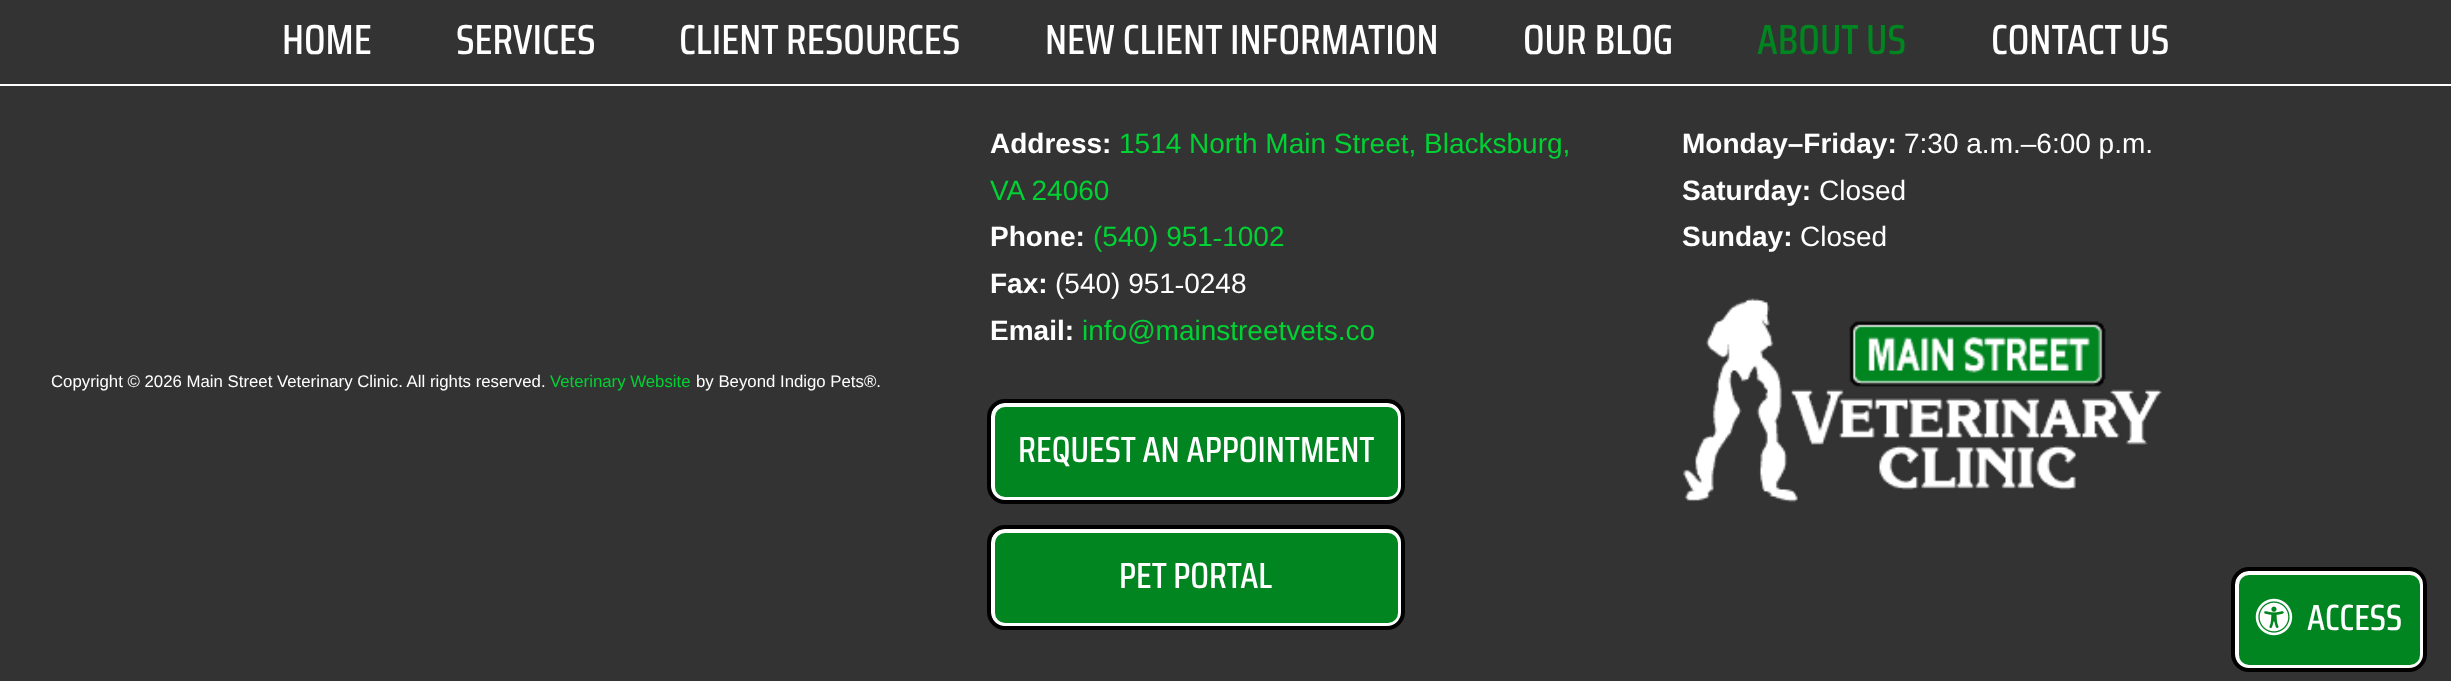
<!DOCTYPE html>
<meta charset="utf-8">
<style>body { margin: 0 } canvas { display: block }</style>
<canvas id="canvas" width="2451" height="681"></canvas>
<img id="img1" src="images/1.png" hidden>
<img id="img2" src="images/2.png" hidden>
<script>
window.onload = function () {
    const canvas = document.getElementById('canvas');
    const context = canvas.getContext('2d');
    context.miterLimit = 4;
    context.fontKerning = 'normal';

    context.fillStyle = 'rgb(51, 51, 51)';
    context.fillRect(0, 0, 2451, 681);
    context.fillStyle = 'rgb(255, 255, 255)';
    context.fillRect(0, 84, 2451, 2);
    context.fillStyle = 'rgb(0, 133, 33)';
    context.beginPath();
    context.roundRect(993, 405, 407, 94, 12);
    context.fill();
    context.strokeStyle = 'rgb(255, 255, 255)';
    context.lineWidth = 4;
    context.stroke();
    context.beginPath();
    context.roundRect(989, 401, 414, 101, 16);
    context.strokeStyle = 'rgb(0, 0, 0)';
    context.stroke();
    context.beginPath();
    context.roundRect(993, 531, 407, 94, 12);
    context.fill();
    context.strokeStyle = 'rgb(255, 255, 255)';
    context.stroke();
    context.beginPath();
    context.roundRect(989, 527, 414, 101, 16);
    context.strokeStyle = 'rgb(0, 0, 0)';
    context.stroke();
    context.drawImage(document.getElementById('img1'), 1683, 298, 479, 205);
    context.beginPath();
    context.roundRect(2237, 573, 185, 94, 12);
    context.fill();
    context.strokeStyle = 'rgb(255, 255, 255)';
    context.stroke();
    context.drawImage(document.getElementById('img2'), 2255, 598, 38, 38);
    context.beginPath();
    context.roundRect(2233, 569, 192, 101, 16);
    context.strokeStyle = 'rgb(0, 0, 0)';
    context.stroke();
    context.font = '500 42px Saira Condensed';
    context.fillStyle = 'rgb(255, 255, 255)';
    context.fillText('HOME', 282, 54);
    context.fillText('SERVICES', 456, 54);
    context.fillText('CLIENT RESOURCES', 679, 54);
    context.fillText('NEW CLIENT INFORMATION', 1045, 54);
    context.fillText('OUR BLOG', 1523, 54);
    context.fillStyle = 'rgb(0, 133, 33)';
    context.fillText('ABOUT US', 1757, 54);
    context.fillStyle = 'rgb(255, 255, 255)';
    context.fillText('CONTACT US', 1991, 54);
    context.font = '16.8px Liberation Sans';
    context.fillText('Copyright © 2026 Main Street Veterinary Clinic. All rights reserved.', 51, 387);
    context.fillStyle = 'rgb(0, 210, 52)';
    context.fillText('Veterinary Website', 550, 387);
    context.fillStyle = 'rgb(255, 255, 255)';
    context.fillText('by Beyond Indigo Pets®.', 696, 387);
    context.font = 'bold 28px Liberation Sans';
    context.fillText('Address:', 990, 153);
    context.font = '28px Liberation Sans';
    context.fillStyle = 'rgb(0, 210, 52)';
    context.fillText('1514 North Main Street, Blacksburg,', 1119, 153);
    context.fillText('VA 24060', 990, 200);
    context.font = 'bold 28px Liberation Sans';
    context.fillStyle = 'rgb(255, 255, 255)';
    context.fillText('Phone:', 990, 246);
    context.font = '28px Liberation Sans';
    context.fillStyle = 'rgb(0, 210, 52)';
    context.fillText('(540) 951‑1002', 1093, 246);
    context.font = 'bold 28px Liberation Sans';
    context.fillStyle = 'rgb(255, 255, 255)';
    context.fillText('Fax:', 990, 293);
    context.font = '28px Liberation Sans';
    context.fillText('(540) 951‑0248', 1055, 293);
    context.font = 'bold 28px Liberation Sans';
    context.fillText('Email:', 990, 340);
    context.font = '28px Liberation Sans';
    context.fillStyle = 'rgb(0, 210, 52)';
    context.fillText('info@mainstreetvets.co', 1082, 340);
    context.font = '500 36.5px Saira Condensed';
    context.fillStyle = 'rgb(255, 255, 255)';
    context.fillText('REQUEST AN APPOINTMENT', 1018, 462);
    context.fillText('PET PORTAL', 1119, 588);
    context.font = 'bold 28px Liberation Sans';
    context.fillText('Monday–Friday:', 1682, 153);
    context.font = '28px Liberation Sans';
    context.fillText('7:30 a.m.–6:00 p.m.', 1904, 153);
    context.font = 'bold 28px Liberation Sans';
    context.fillText('Saturday:', 1682, 200);
    context.font = '28px Liberation Sans';
    context.fillText('Closed', 1819, 200);
    context.font = 'bold 28px Liberation Sans';
    context.fillText('Sunday:', 1682, 246);
    context.font = '28px Liberation Sans';
    context.fillText('Closed', 1800, 246);
    context.font = '500 36.5px Saira Condensed';
    context.fillText('ACCESS', 2307, 630);
};
</script>
